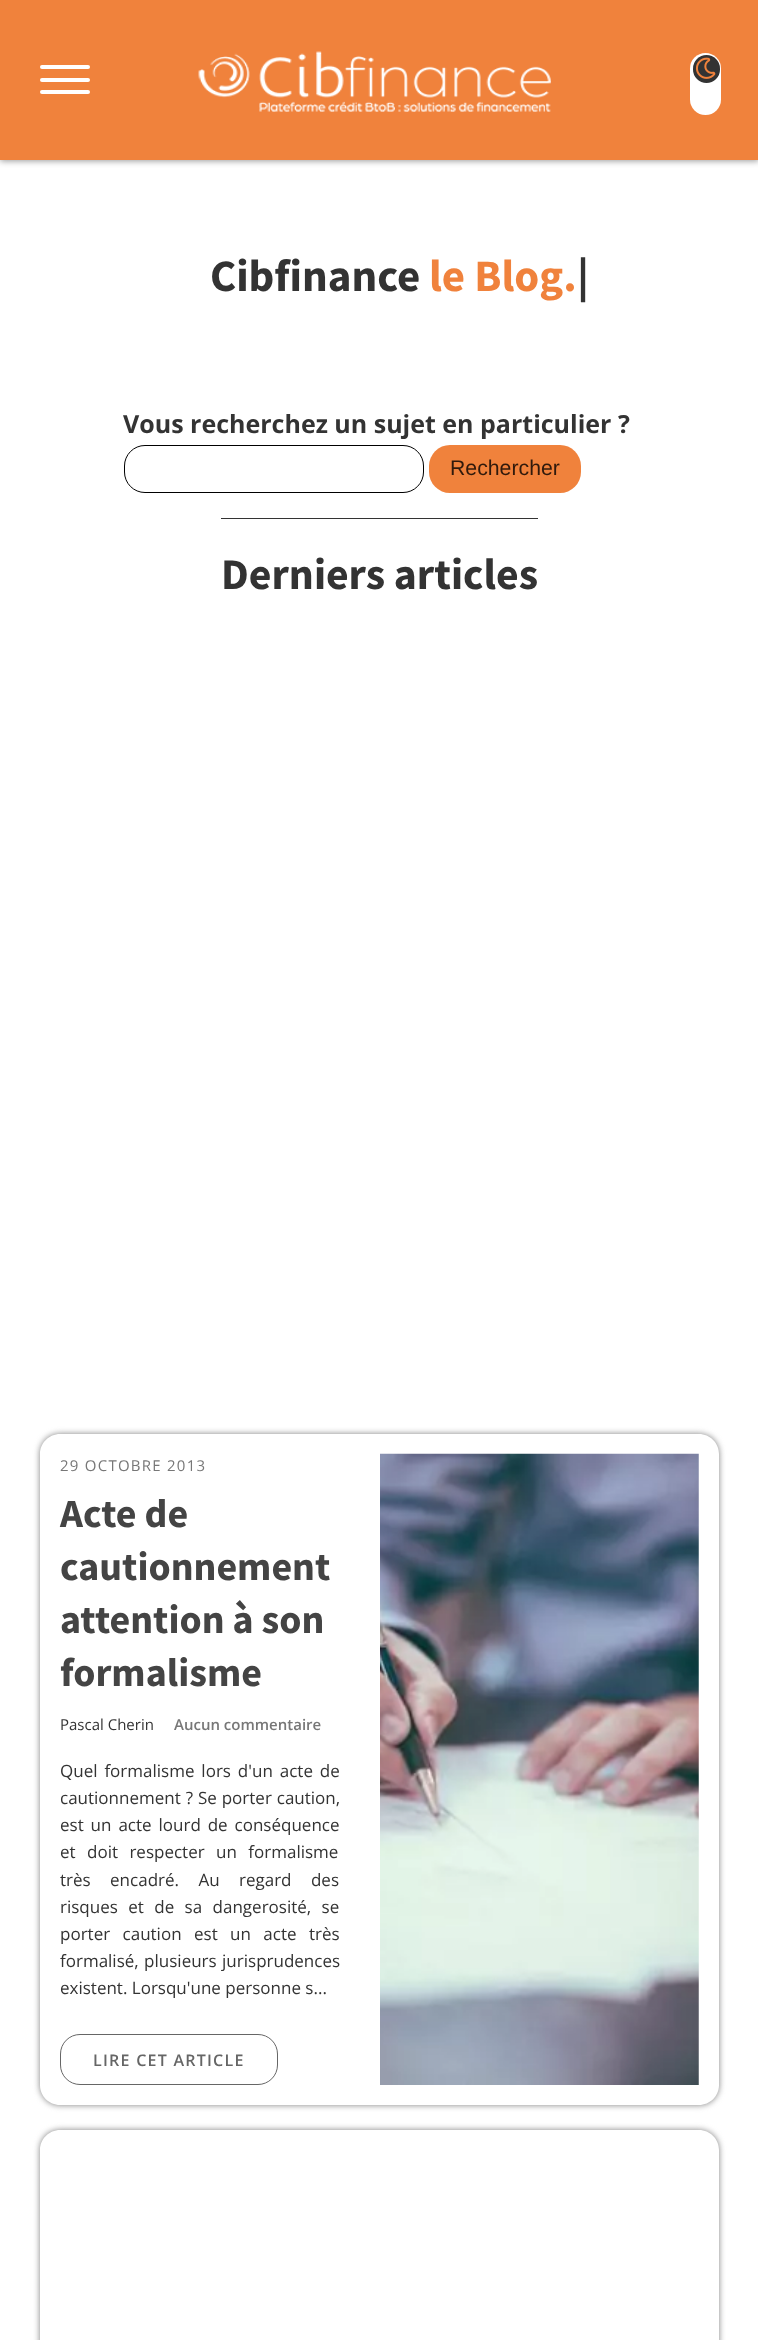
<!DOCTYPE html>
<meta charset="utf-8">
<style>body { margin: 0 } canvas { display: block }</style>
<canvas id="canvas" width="758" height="2340"></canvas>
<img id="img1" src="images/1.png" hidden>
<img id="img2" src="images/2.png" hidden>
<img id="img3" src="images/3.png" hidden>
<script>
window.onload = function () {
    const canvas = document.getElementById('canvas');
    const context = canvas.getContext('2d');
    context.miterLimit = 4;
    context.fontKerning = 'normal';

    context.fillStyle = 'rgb(255, 255, 255)';
    context.fillRect(0, 0, 758, 2340);
    context.fillStyle = 'rgba(0, 0, 0, 0.4)';
    context.filter = 'blur(3px)';
    context.beginPath();
    context.rect(0, 1, 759, 160);
    context.fill();
    context.filter = 'none';
    context.fillStyle = 'rgb(240, 130, 60)';
    context.fillRect(0, 0, 758, 160);
    context.fillStyle = 'rgb(255, 255, 255)';
    context.beginPath();
    context.roundRect(40, 65, 50, 4, 2);
    context.fill();
    context.beginPath();
    context.roundRect(40, 78, 50, 4, 2);
    context.fill();
    context.beginPath();
    context.roundRect(40, 90, 50, 4, 2);
    context.fill();
    context.drawImage(document.getElementById('img1'), 198, 51, 353, 61);
    context.beginPath();
    context.roundRect(690, 53, 31, 62, 15.5);
    context.fill();
    context.fillStyle = 'rgb(51, 51, 51)';
    context.beginPath();
    context.roundRect(693, 55, 27, 28, 13.5);
    context.fill();
    context.drawImage(document.getElementById('img2'), 695, 57, 21, 22);
    context.beginPath();
    context.roundRect(124.5, 445.5, 299, 47, 20.5);
    context.strokeStyle = 'rgb(0, 0, 0)';
    context.stroke();
    context.fillStyle = 'rgb(240, 130, 60)';
    context.beginPath();
    context.roundRect(429, 445, 152, 48, 21);
    context.fill();
    context.fillStyle = 'rgb(51, 51, 51)';
    context.fillRect(221, 518, 317, 1);
    context.save();
    context.beginPath();
    context.moveTo(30, 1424);
    context.lineTo(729, 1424);
    context.lineTo(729, 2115);
    context.lineTo(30, 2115);
    context.closePath();
    context.moveTo(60, 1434);
    context.lineTo(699, 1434);
    context.bezierCurveTo(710, 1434, 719, 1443, 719, 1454);
    context.lineTo(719, 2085);
    context.bezierCurveTo(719, 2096, 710, 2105, 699, 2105);
    context.lineTo(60, 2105);
    context.bezierCurveTo(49, 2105, 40, 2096, 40, 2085);
    context.lineTo(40, 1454);
    context.bezierCurveTo(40, 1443, 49, 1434, 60, 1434);
    context.closePath();
    context.clip('evenodd');
    context.fillStyle = 'rgb(128, 128, 128)';
    context.filter = 'blur(3px)';
    context.beginPath();
    context.roundRect(40, 1434, 679, 671, 20);
    context.fill();
    context.filter = 'none';
    context.restore();
    context.beginPath();
    context.roundRect(60.5, 2034.5, 217, 50, 19.5);
    context.strokeStyle = 'rgb(102, 102, 102)';
    context.stroke();
    context.drawImage(document.getElementById('img3'), 380, 1453, 319, 632);
    context.save();
    context.beginPath();
    context.moveTo(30, 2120);
    context.lineTo(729, 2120);
    context.lineTo(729, 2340);
    context.lineTo(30, 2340);
    context.closePath();
    context.moveTo(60, 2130);
    context.lineTo(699, 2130);
    context.bezierCurveTo(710, 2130, 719, 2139, 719, 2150);
    context.lineTo(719, 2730);
    context.bezierCurveTo(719, 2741, 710, 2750, 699, 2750);
    context.lineTo(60, 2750);
    context.bezierCurveTo(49, 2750, 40, 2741, 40, 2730);
    context.lineTo(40, 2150);
    context.bezierCurveTo(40, 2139, 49, 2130, 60, 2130);
    context.closePath();
    context.clip('evenodd');
    context.fillStyle = 'rgb(128, 128, 128)';
    context.filter = 'blur(3px)';
    context.beginPath();
    context.roundRect(40, 2130, 679, 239, 20);
    context.fill();
    context.filter = 'none';
    context.restore();
    context.font = 'bold 45px Source Sans Pro';
    context.fillText('Cibfinance', 210, 291);
    context.fillStyle = 'rgb(240, 130, 60)';
    context.fillText('le Blog.', 429, 291);
    context.fillStyle = 'rgb(51, 51, 51)';
    context.fillText('|', 577, 291);
    context.font = 'bold 25px Open Sans';
    context.fillText('Vous recherchez un sujet en particulier ?', 123, 433);
    context.font = '21.25px Liberation Sans';
    context.fillStyle = 'rgb(48, 26, 12)';
    context.fillText('Rechercher', 450, 475);
    context.font = 'bold 43.75px Source Sans Pro';
    context.fillStyle = 'rgb(51, 51, 51)';
    context.fillText('Derniers articles', 221, 589);
    context.letterSpacing = '1.25px';
    context.font = '15px Open Sans';
    context.fillStyle = 'rgb(119, 119, 119)';
    context.fillText('29 OCTOBRE 2013', 60, 1471);
    context.letterSpacing = '0px';
    context.font = 'bold 40px Source Sans Pro';
    context.fillStyle = 'rgb(68, 68, 68)';
    context.fillText('Acte de', 60, 1527);
    context.fillText('cautionnement', 60, 1580);
    context.fillText('attention à son', 60, 1633);
    context.fillText('formalisme', 60, 1686);
    context.font = '15px Open Sans';
    context.fillStyle = 'rgb(51, 51, 51)';
    context.fillText('Pascal Cherin', 60, 1730);
    context.font = '600 15px Open Sans';
    context.fillStyle = 'rgb(119, 119, 119)';
    context.fillText('Aucun commentaire', 174, 1730);
    context.wordSpacing = '2.5px';
    context.font = '17px Open Sans';
    context.fillStyle = 'rgb(51, 51, 51)';
    context.fillText('Quel formalisme lors d\'un acte de', 60, 1777);
    context.wordSpacing = '0.5px';
    context.fillText('cautionnement ? Se porter caution,', 60, 1804);
    context.wordSpacing = '2.5px';
    context.fillText('est un acte lourd de conséquence', 60, 1831);
    context.wordSpacing = '7px';
    context.fillText('et doit respecter un formalisme', 60, 1858);
    context.wordSpacing = '15px';
    context.fillText('très encadré. Au regard des', 60, 1886);
    context.wordSpacing = '6px';
    context.fillText('risques et de sa dangerosité, se', 60, 1913);
    context.wordSpacing = '8px';
    context.fillText('porter caution est un acte très', 60, 1940);
    context.wordSpacing = '1px';
    context.fillText('formalisé, plusieurs jurisprudences', 60, 1967);
    context.wordSpacing = '0px';
    context.fillText('existent. Lorsqu\'une personne s...', 60, 1994);
    context.letterSpacing = '1.25px';
    context.font = '600 16px Open Sans';
    context.fillStyle = 'rgb(102, 102, 102)';
    context.fillText('LIRE CET ARTICLE', 93, 2066);
};
</script>
